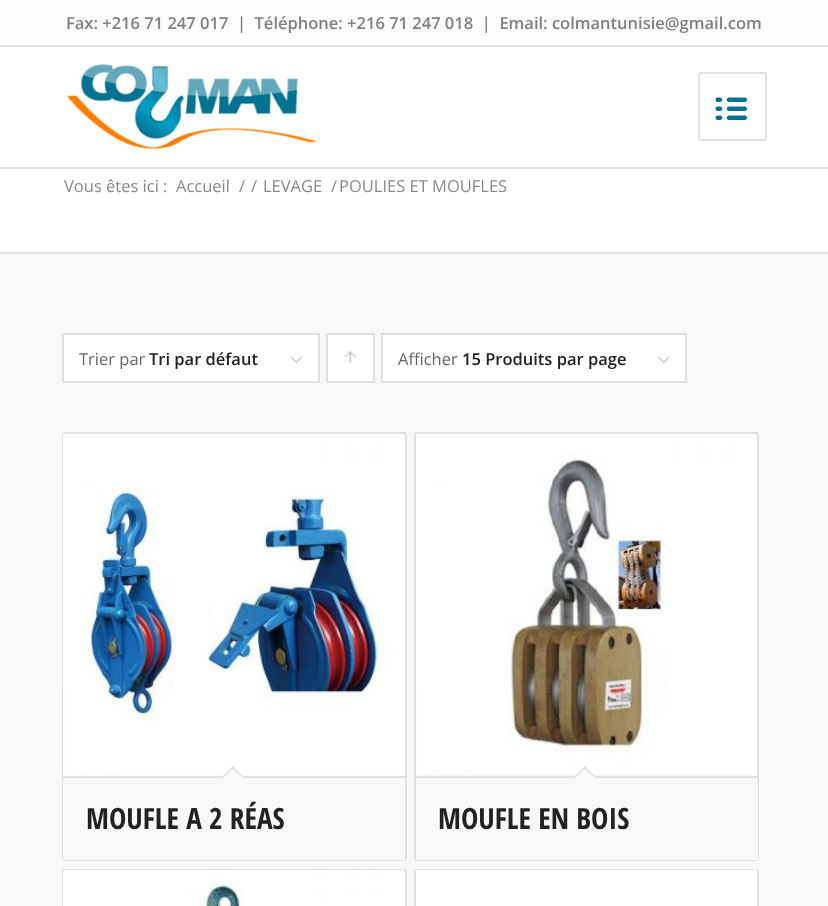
<!DOCTYPE html>
<meta charset="utf-8">
<style>body { margin: 0 } canvas { display: block }</style>
<canvas id="canvas" width="828" height="906"></canvas>
<img id="img1" src="images/1.png" hidden>
<img id="img2" src="images/2.png" hidden>
<img id="img3" src="images/3.png" hidden>
<img id="img4" src="images/4.png" hidden>
<img id="img5" src="images/5.png" hidden>
<img id="img6" src="images/6.png" hidden>
<img id="img7" src="images/7.png" hidden>
<img id="img8" src="images/8.png" hidden>
<script>
window.onload = function () {
    const canvas = document.getElementById('canvas');
    const context = canvas.getContext('2d');
    context.miterLimit = 4;
    context.fontKerning = 'normal';

    context.fillStyle = 'rgb(255, 255, 255)';
    context.fillRect(0, 0, 828, 906);
    context.fillStyle = 'rgb(252, 252, 252)';
    context.fillRect(0, 0, 828, 45);
    context.fillStyle = 'rgb(225, 225, 225)';
    context.fillRect(0, 45, 828, 2);
    context.fillRect(0, 167, 828, 2);
    context.drawImage(document.getElementById('img1'), 66, 64, 252, 86);
    context.beginPath();
    context.roundRect(699, 73, 67, 67, 2);
    context.strokeStyle = 'rgb(225, 225, 225)';
    context.lineWidth = 2;
    context.stroke();
    context.drawImage(document.getElementById('img2'), 715, 97, 32, 23);
    context.fillStyle = 'rgb(248, 248, 248)';
    context.fillRect(0, 254, 828, 652);
    context.fillStyle = 'rgb(225, 225, 225)';
    context.fillRect(0, 252, 828, 2);
    context.fillStyle = 'rgb(255, 255, 255)';
    context.fillRect(64, 335, 254, 46);
    context.drawImage(document.getElementById('img3'), 290, 356, 12, 8);
    context.strokeRect(63, 334, 256, 48);
    context.fillRect(328, 335, 45, 46);
    context.drawImage(document.getElementById('img4'), 344, 350, 12, 14);
    context.strokeRect(327, 334, 47, 48);
    context.fillRect(383, 335, 302, 46);
    context.drawImage(document.getElementById('img5'), 658, 356, 12, 8);
    context.strokeRect(382, 334, 304, 48);
    context.beginPath();
    context.roundRect(63, 433, 343, 427, 2);
    context.stroke();
    context.drawImage(document.getElementById('img6'), 63, 434, 342, 342);
    context.fillStyle = 'rgb(248, 248, 248)';
    context.beginPath();
    context.roundRect(63, 776, 342, 84, [0, 0, 1.5, 1.5]);
    context.fill();
    context.fillStyle = 'rgb(225, 225, 225)';
    context.fillRect(63, 776, 342, 2);
    context.fillStyle = 'rgb(248, 248, 248)';
    context.beginPath();
    context.moveTo(233, 766);
    context.lineTo(243.5, 777);
    context.lineTo(233, 787.5);
    context.lineTo(222.5, 777);
    context.closePath();
    context.fill();
    context.fillStyle = 'rgb(225, 225, 225)';
    context.beginPath();
    context.moveTo(233, 766);
    context.lineTo(243.5, 777);
    context.lineTo(242.5, 778);
    context.lineTo(232, 767.5);
    context.closePath();
    context.fill();
    context.beginPath();
    context.moveTo(233, 766);
    context.lineTo(234, 767.5);
    context.lineTo(223.5, 778);
    context.lineTo(222.5, 777);
    context.closePath();
    context.fill();
    context.beginPath();
    context.roundRect(415, 433, 343, 427, 2);
    context.stroke();
    context.drawImage(document.getElementById('img7'), 416, 434, 341, 341);
    context.fillStyle = 'rgb(248, 248, 248)';
    context.beginPath();
    context.roundRect(416, 776, 342, 84, [0, 0, 1.5, 1.5]);
    context.fill();
    context.fillStyle = 'rgb(225, 225, 225)';
    context.fillRect(416, 776, 342, 2);
    context.fillStyle = 'rgb(248, 248, 248)';
    context.beginPath();
    context.moveTo(585, 766);
    context.lineTo(595.5, 777);
    context.lineTo(585, 787.5);
    context.lineTo(574.5, 777);
    context.closePath();
    context.fill();
    context.fillStyle = 'rgb(225, 225, 225)';
    context.beginPath();
    context.moveTo(585, 766);
    context.lineTo(595.5, 777);
    context.lineTo(594.5, 778);
    context.lineTo(584, 767.5);
    context.closePath();
    context.fill();
    context.beginPath();
    context.moveTo(585, 766);
    context.lineTo(586, 767.5);
    context.lineTo(575.5, 778);
    context.lineTo(574.5, 777);
    context.closePath();
    context.fill();
    context.beginPath();
    context.roundRect(63, 870, 343, 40, 2);
    context.stroke();
    context.drawImage(document.getElementById('img8'), 63, 870, 342, 36);
    context.beginPath();
    context.roundRect(415, 870, 343, 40, 2);
    context.stroke();
    context.fillStyle = 'rgb(255, 255, 255)';
    context.fillRect(416, 870, 341, 36);
    context.font = '600 16.5px Open Sans';
    context.fillStyle = 'rgb(128, 128, 128)';
    context.fillText('Fax: +216 71 247 017  |  Téléphone: +216 71 247 018  |  Email: colmantunisie@gmail.com', 66, 29);
    context.font = '16.5px Open Sans';
    context.fillStyle = 'rgb(136, 136, 136)';
    context.fillText('Vous êtes ici :', 64, 192);
    context.fillText('Accueil', 176, 192);
    context.fillText('/', 239, 192);
    context.fillText('/', 251, 192);
    context.fillText('LEVAGE', 263, 192);
    context.fillText('/', 331, 192);
    context.fillText('POULIES ET MOUFLES', 339, 192);
    context.fillStyle = 'rgb(102, 102, 102)';
    context.fillText('Trier par', 79, 365);
    context.font = '600 16.5px Open Sans';
    context.fillStyle = 'rgb(34, 34, 34)';
    context.fillText('Tri par défaut', 149, 365);
    context.font = '16.5px Open Sans';
    context.fillStyle = 'rgb(102, 102, 102)';
    context.fillText('Afficher', 398, 365);
    context.font = '600 16.5px Open Sans';
    context.fillStyle = 'rgb(34, 34, 34)';
    context.fillText('15 Produits par page', 462, 365);
    context.font = 'bold 29.25px Open Sans Condensed';
    context.fillText('MOUFLE A 2 RÉAS', 86, 829);
    context.fillText('MOUFLE EN BOIS', 438, 829);
};
</script>
